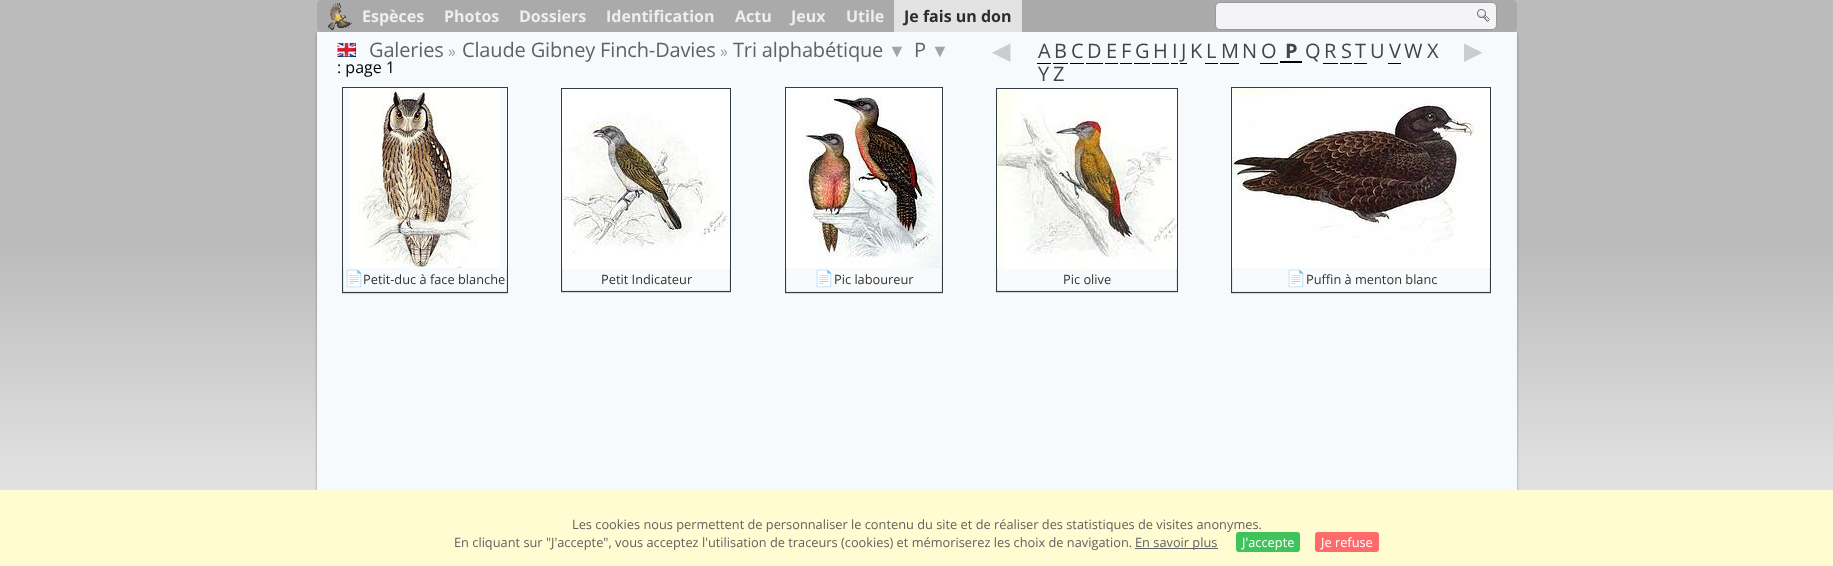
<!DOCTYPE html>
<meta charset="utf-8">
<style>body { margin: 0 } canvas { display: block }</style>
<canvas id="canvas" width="1833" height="566"></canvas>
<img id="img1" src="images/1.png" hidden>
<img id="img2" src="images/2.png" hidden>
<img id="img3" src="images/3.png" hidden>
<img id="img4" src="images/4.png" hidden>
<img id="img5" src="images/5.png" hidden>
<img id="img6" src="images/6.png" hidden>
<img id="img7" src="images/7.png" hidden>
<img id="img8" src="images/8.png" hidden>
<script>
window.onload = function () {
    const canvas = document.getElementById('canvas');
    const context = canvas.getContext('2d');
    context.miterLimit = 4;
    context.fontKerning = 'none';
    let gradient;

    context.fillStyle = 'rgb(255, 255, 255)';
    context.fillRect(0, 0, 1833, 566);
    gradient = context.createLinearGradient(917, 0, 917, 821);
    gradient.addColorStop(0, 'rgb(187, 187, 187)');
    gradient.addColorStop(0.3, 'rgb(187, 187, 187)');
    gradient.addColorStop(0.55, 'rgb(221, 221, 221)');
    gradient.addColorStop(0.9, 'rgb(255, 255, 255)');
    gradient.addColorStop(1, 'rgb(255, 255, 255)');
    context.fillStyle = gradient;
    context.fillRect(0, 0, 1833, 490);
    context.fillStyle = 'rgba(0, 0, 0, 0.24)';
    context.filter = 'blur(1px)';
    context.beginPath();
    context.rect(317, 33, 1200, 471);
    context.fill();
    context.filter = 'none';
    context.fillStyle = 'rgba(0, 0, 0, 0.12)';
    context.filter = 'blur(1.5px)';
    context.beginPath();
    context.rect(317, 33, 1200, 471);
    context.fill();
    context.filter = 'none';
    context.fillStyle = 'rgb(170, 170, 170)';
    context.beginPath();
    context.roundRect(317, 0, 1200, 32, 5);
    context.fill();
    context.drawImage(document.getElementById('img1'), 328, 2, 24, 28);
    context.fillStyle = 'rgb(227, 227, 227)';
    context.fillRect(894, 0, 128, 32);
    context.fillStyle = 'rgb(243, 243, 248)';
    context.beginPath();
    context.roundRect(1215.5, 2.5, 281, 27, 4.5);
    context.fill();
    context.strokeStyle = 'rgb(153, 153, 153)';
    context.stroke();
    context.drawImage(document.getElementById('img2'), 1477, 9, 13, 13);
    context.fillStyle = 'rgb(247, 250, 252)';
    context.fillRect(317, 32, 1200, 458);
    context.drawImage(document.getElementById('img3'), 337, 42, 19, 15);
    context.fillStyle = 'rgb(0, 0, 0)';
    context.fillRect(1037, 63, 14, 1);
    context.fillRect(1053, 63, 15, 1);
    context.fillRect(1070, 63, 14, 1);
    context.fillRect(1086, 63, 17, 1);
    context.fillRect(1105, 63, 13, 1);
    context.fillRect(1120, 63, 12, 1);
    context.fillRect(1134, 63, 16, 1);
    context.fillRect(1152, 63, 17, 1);
    context.fillRect(1171, 63, 7, 1);
    context.fillRect(1180, 63, 7, 1);
    context.fillRect(1205, 63, 13, 1);
    context.fillRect(1220, 63, 19, 1);
    context.fillRect(1260, 63, 18, 1);
    context.fillRect(1280, 61, 22, 2);
    context.fillRect(1323, 63, 15, 1);
    context.fillRect(1340, 63, 12, 1);
    context.fillRect(1354, 63, 13, 1);
    context.fillRect(1388, 63, 13, 1);
    context.save();
    context.beginPath();
    context.rect(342, 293, 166, 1);
    context.clip();
    context.fillStyle = 'rgba(0, 0, 0, 0.15)';
    context.filter = 'blur(0.5px)';
    context.beginPath();
    context.rect(342, 88, 166, 206);
    context.fill();
    context.filter = 'none';
    context.restore();
    context.strokeStyle = 'rgb(52, 60, 67)';
    context.strokeRect(342.5, 87.5, 165, 205);
    context.drawImage(document.getElementById('img4'), 350, 88, 150, 180);
    context.beginPath();
    context.moveTo(506.5, 268);
    context.lineTo(506.5, 292);
    context.strokeStyle = 'rgb(218, 218, 218)';
    context.setLineDash([1, 1]);
    context.stroke();
    context.beginPath();
    context.moveTo(343, 291.5);
    context.lineTo(507, 291.5);
    context.stroke();
    context.beginPath();
    context.moveTo(343.5, 268);
    context.lineTo(343.5, 292);
    context.stroke();
    context.fillStyle = 'rgba(0, 0, 0, 0.15)';
    context.filter = 'blur(0.5px)';
    context.beginPath();
    context.rect(561, 89, 170, 204);
    context.fill();
    context.filter = 'none';
    context.strokeStyle = 'rgb(52, 60, 67)';
    context.setLineDash([]);
    context.strokeRect(561.5, 88.5, 169, 203);
    context.drawImage(document.getElementById('img5'), 562, 89, 168, 180);
    context.fillStyle = 'rgb(249, 250, 251)';
    context.fillRect(562, 269, 168, 22);
    context.beginPath();
    context.moveTo(729.5, 269);
    context.lineTo(729.5, 291);
    context.strokeStyle = 'rgb(218, 218, 218)';
    context.setLineDash([1, 1]);
    context.stroke();
    context.beginPath();
    context.moveTo(562, 290.5);
    context.lineTo(730, 290.5);
    context.stroke();
    context.beginPath();
    context.moveTo(562.5, 269);
    context.lineTo(562.5, 291);
    context.stroke();
    context.fillStyle = 'rgba(0, 0, 0, 0.15)';
    context.filter = 'blur(0.5px)';
    context.beginPath();
    context.rect(785, 88, 158, 206);
    context.fill();
    context.filter = 'none';
    context.strokeStyle = 'rgb(52, 60, 67)';
    context.setLineDash([]);
    context.strokeRect(785.5, 87.5, 157, 205);
    context.drawImage(document.getElementById('img6'), 786, 88, 156, 180);
    context.fillStyle = 'rgb(249, 250, 251)';
    context.fillRect(786, 268, 156, 24);
    context.beginPath();
    context.moveTo(941.5, 268);
    context.lineTo(941.5, 292);
    context.strokeStyle = 'rgb(218, 218, 218)';
    context.setLineDash([1, 1]);
    context.stroke();
    context.beginPath();
    context.moveTo(786, 291.5);
    context.lineTo(942, 291.5);
    context.stroke();
    context.beginPath();
    context.moveTo(786.5, 268);
    context.lineTo(786.5, 292);
    context.stroke();
    context.fillStyle = 'rgba(0, 0, 0, 0.15)';
    context.filter = 'blur(0.5px)';
    context.beginPath();
    context.rect(996, 89, 182, 204);
    context.fill();
    context.filter = 'none';
    context.strokeStyle = 'rgb(52, 60, 67)';
    context.setLineDash([]);
    context.strokeRect(996.5, 88.5, 181, 203);
    context.drawImage(document.getElementById('img7'), 997, 89, 180, 180);
    context.fillStyle = 'rgb(249, 250, 251)';
    context.fillRect(997, 269, 180, 22);
    context.beginPath();
    context.moveTo(1176.5, 269);
    context.lineTo(1176.5, 291);
    context.strokeStyle = 'rgb(218, 218, 218)';
    context.setLineDash([1, 1]);
    context.stroke();
    context.beginPath();
    context.moveTo(997, 290.5);
    context.lineTo(1177, 290.5);
    context.stroke();
    context.beginPath();
    context.moveTo(997.5, 269);
    context.lineTo(997.5, 291);
    context.stroke();
    context.fillStyle = 'rgba(0, 0, 0, 0.15)';
    context.filter = 'blur(0.5px)';
    context.beginPath();
    context.rect(1231, 88, 260, 206);
    context.fill();
    context.filter = 'none';
    context.strokeStyle = 'rgb(52, 60, 67)';
    context.setLineDash([]);
    context.strokeRect(1231.5, 87.5, 259, 205);
    context.drawImage(document.getElementById('img8'), 1232, 88, 258, 180);
    context.fillStyle = 'rgb(249, 250, 251)';
    context.fillRect(1232, 268, 258, 24);
    context.beginPath();
    context.moveTo(1489.5, 268);
    context.lineTo(1489.5, 292);
    context.strokeStyle = 'rgb(218, 218, 218)';
    context.setLineDash([1, 1]);
    context.stroke();
    context.beginPath();
    context.moveTo(1232, 291.5);
    context.lineTo(1490, 291.5);
    context.stroke();
    context.beginPath();
    context.moveTo(1232.5, 268);
    context.lineTo(1232.5, 292);
    context.stroke();
    context.fillStyle = 'rgb(255, 252, 209)';
    context.fillRect(0, 490, 1833, 76);
    context.fillStyle = 'rgb(102, 102, 102)';
    context.fillRect(1135, 548, 83, 1);
    context.fillStyle = 'rgb(255, 107, 107)';
    context.beginPath();
    context.roundRect(1315, 532, 64, 20, 3);
    context.fill();
    context.font = 'bold 16px Open Sans';
    context.fillStyle = 'rgb(238, 238, 238)';
    context.fillText('Espèces', 362, 22);
    context.fillText('Photos', 444, 22);
    context.fillText('Dossiers', 519, 22);
    context.fillText('Identification', 606, 22);
    context.fillText('Actu', 735, 22);
    context.fillText('Jeux', 791, 22);
    context.fillText('Utile', 846, 22);
    context.fillStyle = 'rgb(44, 44, 44)';
    context.fillText('Je fais un don', 904, 22);
    context.letterSpacing = '-0.15px';
    context.font = '20px Open Sans';
    context.fillStyle = 'rgb(98, 98, 98)';
    context.fillText('Galeries', 369, 57);
    context.letterSpacing = '0px';
    context.font = '16px Open Sans';
    context.fillStyle = 'rgb(153, 153, 153)';
    context.fillText('»', 448, 57);
    context.letterSpacing = '-0.15px';
    context.font = '20px Open Sans';
    context.fillStyle = 'rgb(98, 98, 98)';
    context.fillText('Claude Gibney Finch-Davies', 462, 57);
    context.letterSpacing = '0px';
    context.font = '16px Open Sans';
    context.fillStyle = 'rgb(153, 153, 153)';
    context.fillText('»', 720, 57);
    context.letterSpacing = '-0.15px';
    context.font = '20px Open Sans';
    context.fillStyle = 'rgb(98, 98, 98)';
    context.fillText('Tri alphabétique', 733, 57);
    context.letterSpacing = '0px';
    context.font = '18px Liberation Sans';
    context.fillStyle = 'rgb(163, 163, 163)';
    context.fillText('▼', 888, 57);
    context.letterSpacing = '-0.15px';
    context.font = '20px Open Sans';
    context.fillStyle = 'rgb(98, 98, 98)';
    context.fillText('P', 914, 57);
    context.letterSpacing = '0px';
    context.font = '18px Liberation Sans';
    context.fillStyle = 'rgb(163, 163, 163)';
    context.fillText('▼', 931, 57);
    context.font = '16px Open Sans';
    context.fillStyle = 'rgb(0, 0, 0)';
    context.fillText(': page 1', 337, 73);
    context.font = '24px DejaVu Sans';
    context.fillStyle = 'rgb(202, 204, 206)';
    context.fillText('◀', 992, 59);
    context.font = '20px Open Sans';
    context.fillStyle = 'rgb(67, 68, 68)';
    context.fillText('A', 1038, 58);
    context.fillText('B', 1054, 58);
    context.fillText('C', 1071, 58);
    context.fillText('D', 1087, 58);
    context.fillText('E', 1106, 58);
    context.fillText('F', 1121, 58);
    context.fillText('G', 1135, 58);
    context.fillText('H', 1153, 58);
    context.fillText('I', 1172, 58);
    context.fillText('J', 1181, 58);
    context.letterSpacing = '-0.15px';
    context.fillText('K', 1190, 58);
    context.letterSpacing = '0px';
    context.fillText('L', 1206, 58);
    context.fillText('M', 1221, 58);
    context.letterSpacing = '-0.15px';
    context.fillText('N', 1242, 58);
    context.letterSpacing = '0px';
    context.fillText('O', 1261, 58);
    context.font = 'bold 20px Open Sans';
    context.fillText('P', 1285, 58);
    context.letterSpacing = '-0.15px';
    context.font = '20px Open Sans';
    context.fillText('Q', 1305, 58);
    context.letterSpacing = '0px';
    context.fillText('R', 1324, 58);
    context.fillText('S', 1341, 58);
    context.fillText('T', 1355, 58);
    context.letterSpacing = '-0.15px';
    context.fillText('U', 1370, 58);
    context.letterSpacing = '0px';
    context.fillText('V', 1389, 58);
    context.letterSpacing = '-0.15px';
    context.fillText('W', 1404, 58);
    context.fillText('X', 1427, 58);
    context.fillText('Y', 1038, 81);
    context.fillText('Z', 1053, 81);
    context.letterSpacing = '0px';
    context.font = '24px DejaVu Sans';
    context.fillStyle = 'rgb(202, 204, 206)';
    context.fillText('▶', 1464, 59);
    context.font = '16px Noto Color Emoji';
    context.fillStyle = 'rgb(51, 51, 51)';
    context.fillText('📄', 344, 284);
    context.font = '12.8px Open Sans';
    context.fillText('Petit-duc à face blanche', 363, 284);
    context.fillText('Petit Indicateur', 601, 284);
    context.font = '16px Noto Color Emoji';
    context.fillText('📄', 814, 284);
    context.font = '12.8px Open Sans';
    context.fillText('Pic laboureur', 834, 284);
    context.fillText('Pic olive', 1063, 284);
    context.font = '16px Noto Color Emoji';
    context.fillText('📄', 1286, 284);
    context.font = '12.8px Open Sans';
    context.fillText('Puffin à menton blanc', 1306, 284);
    context.fillStyle = 'rgb(98, 98, 98)';
    context.fillText('Les cookies nous permettent de personnaliser le contenu du site et de réaliser des statistiques de visites anonymes.', 572, 529);
    context.fillText('En cliquant sur "J\'accepte", vous acceptez l\'utilisation de traceurs (cookies) et mémoriserez les choix de navigation.', 454, 547);
    context.fillText('En savoir plus', 1135, 547);
    context.fillStyle = 'rgb(63, 195, 90)';
    context.beginPath();
    context.roundRect(1236, 532, 64, 20, 3);
    context.fill();
    context.fillStyle = 'rgb(255, 255, 255)';
    context.fillText('J\'accepte', 1242, 547);
    context.fillText('Je refuse', 1321, 547);
};
</script>
